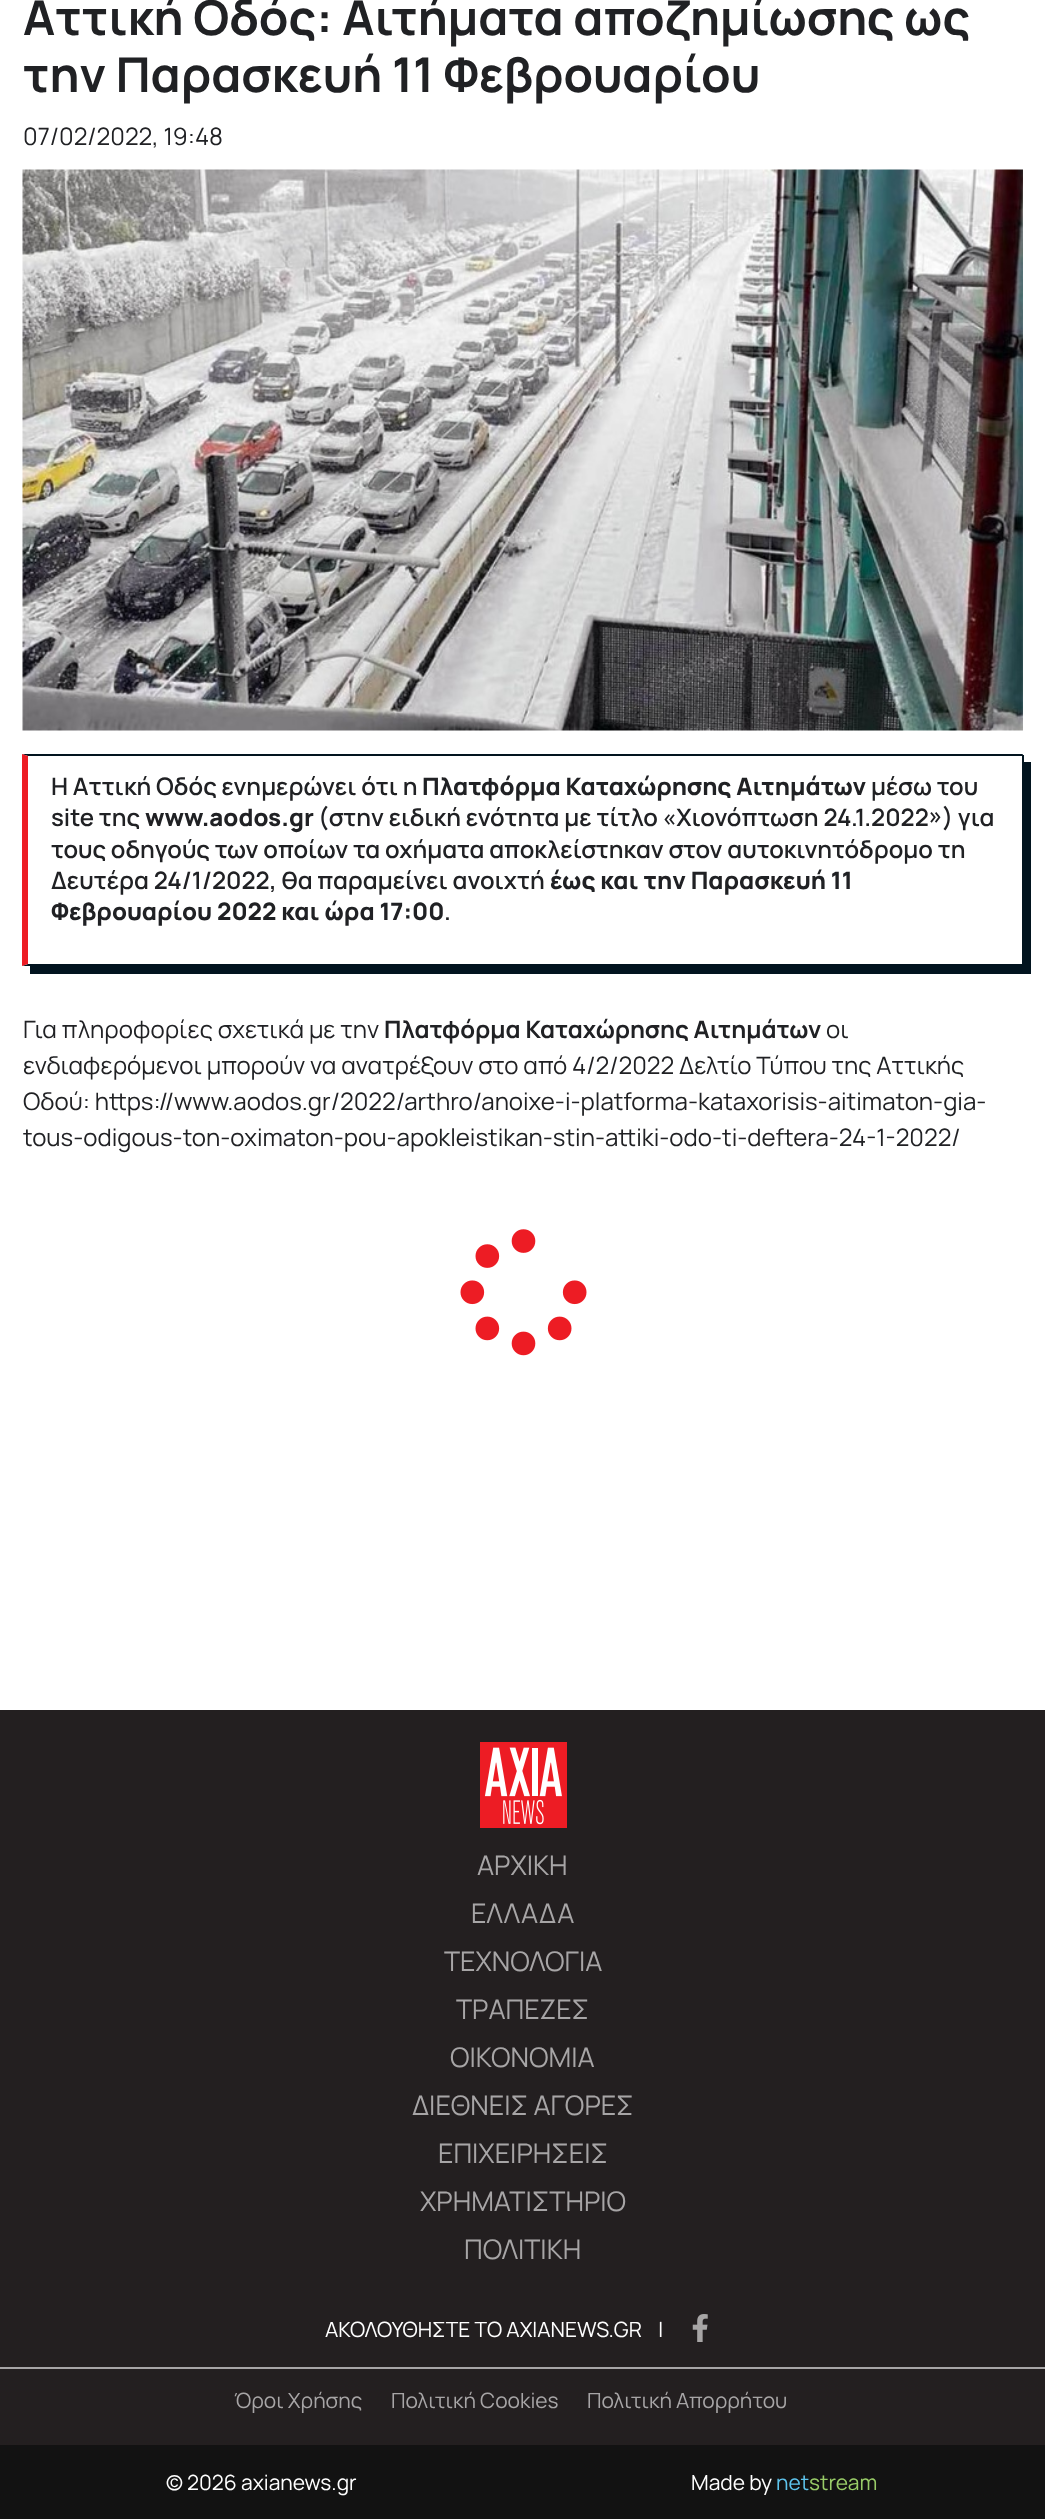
<!DOCTYPE html>
<meta charset="utf-8">
<style>body { margin: 0 } canvas { display: block }</style>
<canvas id="canvas" width="1045" height="2519"></canvas>
<img id="img1" src="images/1.png" hidden>
<img id="img2" src="images/2.png" hidden>
<img id="img3" src="images/3.png" hidden>
<img id="img4" src="images/4.png" hidden>
<script>
window.onload = function () {
    const canvas = document.getElementById('canvas');
    const context = canvas.getContext('2d');
    context.miterLimit = 4;
    context.fontKerning = 'normal';

    context.fillStyle = 'rgb(255, 255, 255)';
    context.fillRect(0, 0, 1045, 2519);
    context.drawImage(document.getElementById('img1'), 22, 169, 1001, 562);
    context.fillStyle = 'rgb(2, 20, 31)';
    context.beginPath();
    context.moveTo(30, 966);
    context.lineTo(30, 974);
    context.lineTo(1031, 974);
    context.lineTo(1031, 762);
    context.lineTo(1023, 762);
    context.lineTo(1023, 966);
    context.closePath();
    context.fill();
    context.beginPath();
    context.moveTo(22, 754);
    context.lineTo(1023, 754);
    context.lineTo(1022, 756);
    context.lineTo(28, 756);
    context.closePath();
    context.fill();
    context.fillRect(1022, 755, 2, 211);
    context.beginPath();
    context.moveTo(1023, 966);
    context.lineTo(22, 966);
    context.lineTo(28, 964);
    context.lineTo(1022, 964);
    context.closePath();
    context.fill();
    context.fillStyle = 'rgb(237, 28, 36)';
    context.beginPath();
    context.moveTo(22, 966);
    context.lineTo(22, 754);
    context.lineTo(28, 756);
    context.lineTo(28, 964);
    context.closePath();
    context.fill();
    context.drawImage(document.getElementById('img2'), 460, 1229, 127, 127);
    context.fillStyle = 'rgb(35, 31, 32)';
    context.fillRect(0, 1710, 1045, 735);
    context.drawImage(document.getElementById('img3'), 480, 1742, 87, 86);
    context.drawImage(document.getElementById('img4'), 692, 2314, 16, 28);
    context.fillStyle = 'rgb(167, 165, 166)';
    context.fillRect(0, 2367, 1045, 2);
    context.fillStyle = 'rgb(18, 18, 18)';
    context.fillRect(0, 2445, 1045, 74);
    context.font = 'bold 48px Manrope';
    context.fillStyle = 'rgb(32, 33, 36)';
    context.fillText('Αττική Οδός: Αιτήματα αποζημίωσης ως', 23, 35);
    context.fillText('την Παρασκευή 11 Φεβρουαρίου', 23, 92);
    context.font = '24px Manrope';
    context.fillText('07/02/2022, 19:48', 23, 145);
    context.font = '600 24px Manrope';
    context.fillText('Η Αττική Οδός ενημερώνει ότι η', 51, 795);
    context.font = '800 24px Manrope';
    context.fillText('Πλατφόρμα Καταχώρησης Αιτημάτων', 422, 795);
    context.font = '600 24px Manrope';
    context.fillText('μέσω του', 871, 795);
    context.fillText('site της', 51, 826);
    context.font = '800 24px Manrope';
    context.fillText('www.aodos.gr', 145, 826);
    context.font = '600 24px Manrope';
    context.fillText('(στην ειδική ενότητα με τίτλο «Χιονόπτωση 24.1.2022») για', 318, 826);
    context.fillText('τους οδηγούς των οποίων τα οχήματα αποκλείστηκαν στον αυτοκινητόδρομο τη', 51, 858);
    context.fillText('Δευτέρα 24/1/2022, θα παραμείνει ανοιχτή', 51, 889);
    context.font = '800 24px Manrope';
    context.fillText('έως και την Παρασκευή 11', 550, 889);
    context.fillText('Φεβρουαρίου 2022 και ώρα 17:00', 51, 920);
    context.font = '600 24px Manrope';
    context.fillText('.', 444, 920);
    context.font = '24px Manrope';
    context.fillText('Για πληροφορίες σχετικά με την', 23, 1038);
    context.font = 'bold 24px Manrope';
    context.fillText('Πλατφόρμα Καταχώρησης Αιτημάτων', 384, 1038);
    context.font = '24px Manrope';
    context.fillText('οι', 826, 1038);
    context.fillText('ενδιαφερόμενοι μπορούν να ανατρέξουν στο από 4/2/2022 Δελτίο Τύπου της Αττικής', 23, 1074);
    context.fillText('Οδού: https://www.aodos.gr/2022/arthro/anoixe-i-platforma-kataxorisis-aitimaton-gia-', 23, 1110);
    context.fillText('tous-odigous-ton-oximaton-pou-apokleistikan-stin-attiki-odo-ti-deftera-24-1-2022/', 23, 1146);
    context.font = '27px Manrope';
    context.fillStyle = 'rgb(167, 165, 166)';
    context.fillText('ΑΡΧΙΚΗ', 477, 1875);
    context.fillText('ΕΛΛΑΔΑ', 471, 1923);
    context.fillText('ΤΕΧΝΟΛΟΓΙΑ', 444, 1971);
    context.fillText('ΤΡΑΠΕΖΕΣ', 456, 2019);
    context.fillText('ΟΙΚΟΝΟΜΙΑ', 450, 2067);
    context.fillText('ΔΙΕΘΝΕΙΣ ΑΓΟΡΕΣ', 412, 2115);
    context.fillText('ΕΠΙΧΕΙΡΗΣΕΙΣ', 438, 2163);
    context.fillText('ΧΡΗΜΑΤΙΣΤΗΡΙΟ', 420, 2211);
    context.fillText('ΠΟΛΙΤΙΚΗ', 464, 2259);
    context.font = '21px Manrope';
    context.fillStyle = 'rgb(255, 255, 255)';
    context.fillText('ΑΚΟΛΟΥΘΗΣΤΕ ΤΟ AXIANEWS.GR', 325, 2337);
    context.fillText('|', 658, 2337);
    context.fillStyle = 'rgb(167, 165, 166)';
    context.fillText('Όροι Χρήσης', 234, 2408);
    context.fillText('Πολιτική Cookies', 391, 2408);
    context.fillText('Πολιτική Απορρήτου', 587, 2408);
    context.fillStyle = 'rgb(255, 255, 255)';
    context.fillText('© 2026 axianews.gr', 166, 2490);
    context.fillText('Made by', 691, 2490);
    context.fillStyle = 'rgb(94, 196, 237)';
    context.fillText('net', 776, 2490);
    context.fillStyle = 'rgb(153, 204, 104)';
    context.fillText('stream', 809, 2490);
};
</script>
